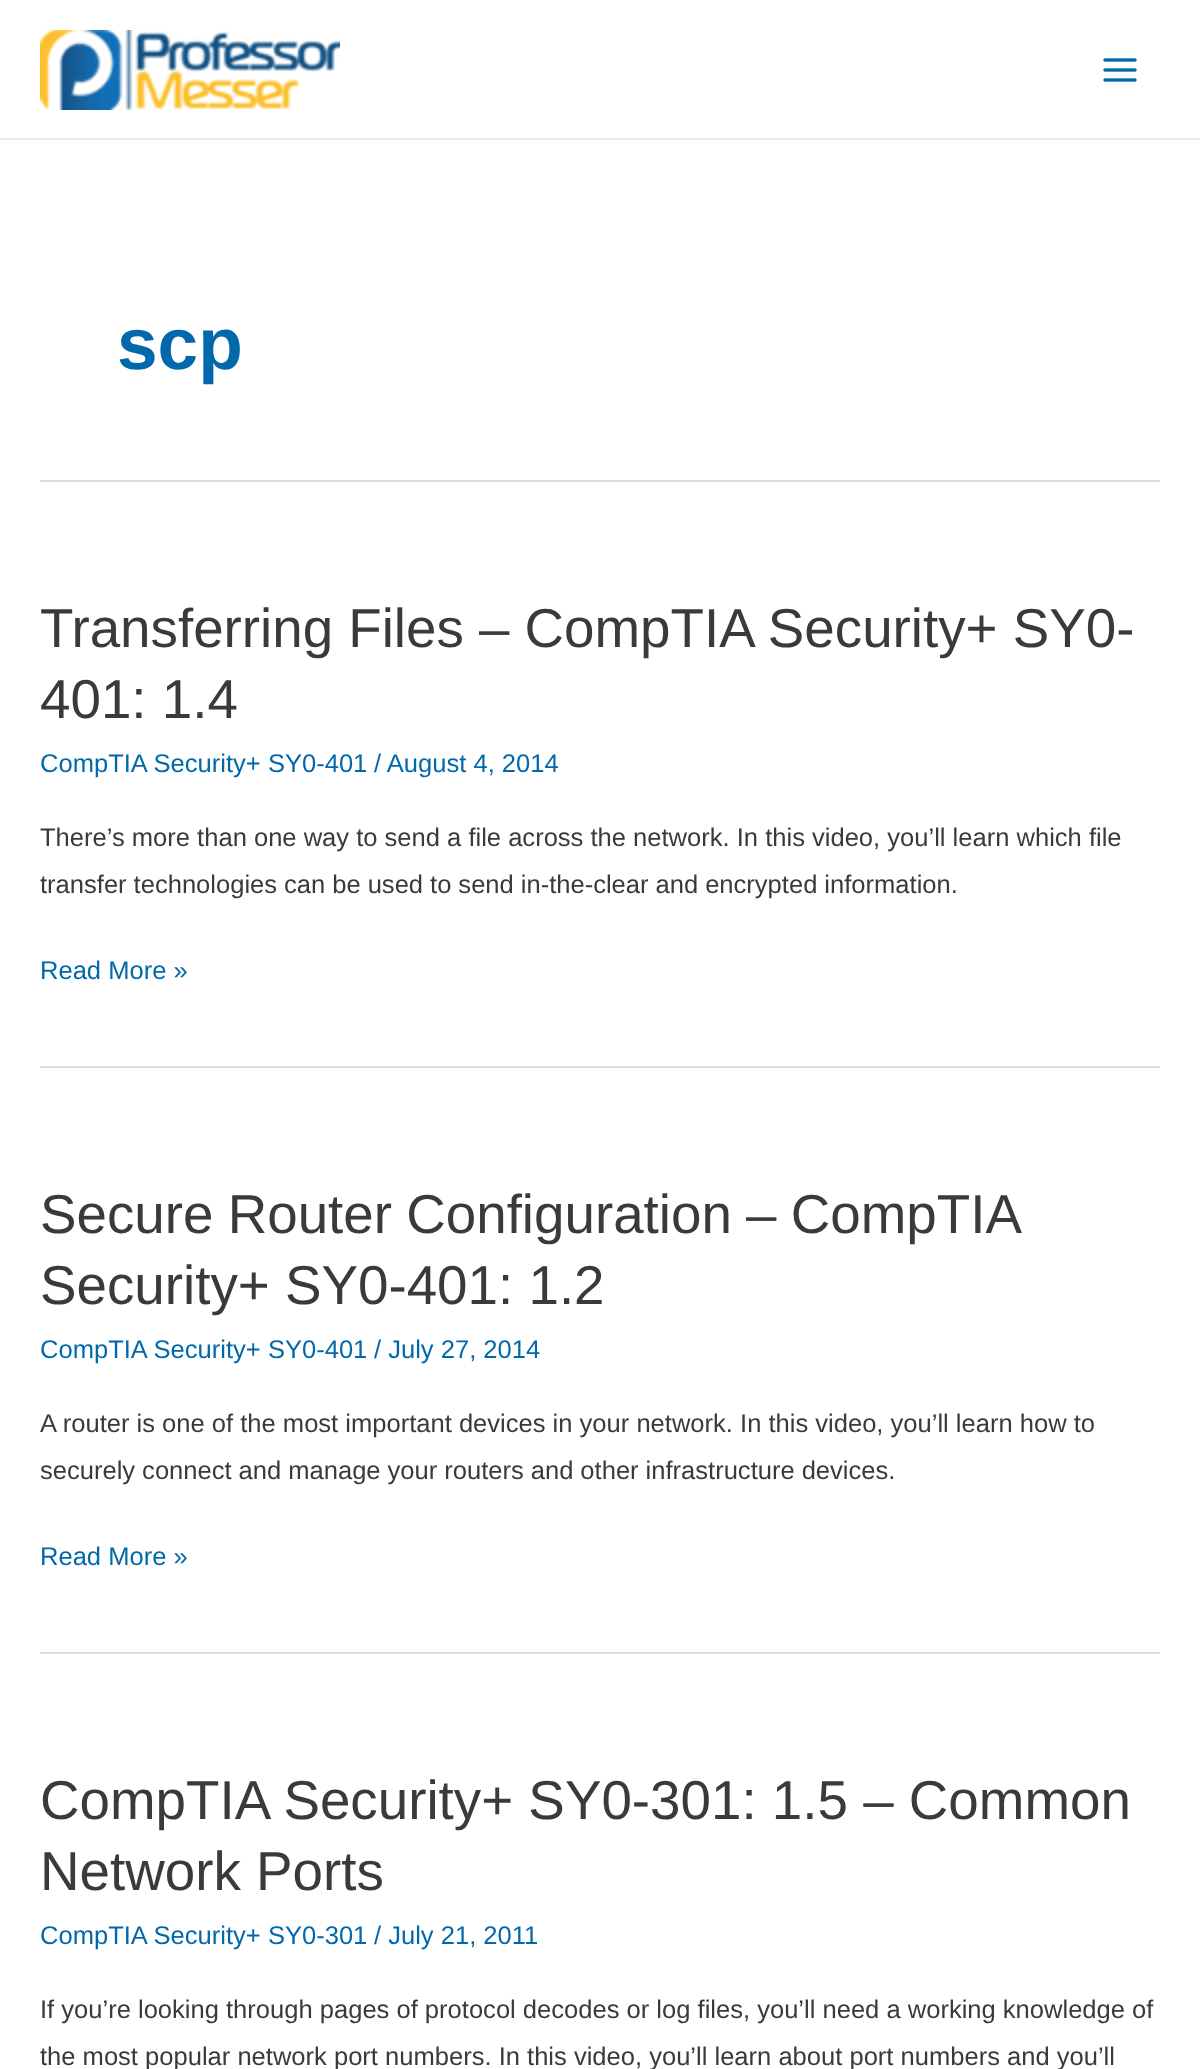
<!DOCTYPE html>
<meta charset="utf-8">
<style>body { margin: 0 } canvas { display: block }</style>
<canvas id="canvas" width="1200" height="2069"></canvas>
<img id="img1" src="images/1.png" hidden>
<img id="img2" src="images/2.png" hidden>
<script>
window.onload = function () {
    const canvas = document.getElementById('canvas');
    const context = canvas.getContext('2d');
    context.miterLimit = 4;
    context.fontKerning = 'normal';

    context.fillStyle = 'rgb(255, 255, 255)';
    context.fillRect(0, 0, 1200, 2069);
    context.fillStyle = 'rgb(234, 234, 234)';
    context.fillRect(0, 138, 1200, 2);
    context.drawImage(document.getElementById('img1'), 40, 30, 300, 80);
    context.drawImage(document.getElementById('img2'), 1103, 58, 34, 24);
    context.fillStyle = 'rgb(221, 221, 221)';
    context.fillRect(40, 480, 1120, 2);
    context.fillRect(40, 1066, 1120, 2);
    context.fillRect(40, 1652, 1120, 2);
    context.font = 'bold 73px Liberation Sans';
    context.fillStyle = 'rgb(2, 104, 172)';
    context.fillText('scp', 117, 369);
    context.wordSpacing = '-0.1px';
    context.font = '54.75px Liberation Sans';
    context.fillStyle = 'rgb(58, 58, 58)';
    context.fillText('Transferring Files – CompTIA Security+ SY0-', 40, 647);
    context.wordSpacing = '0px';
    context.fillText('401: 1.4', 40, 718);
    context.font = '25.55px Liberation Sans';
    context.fillStyle = 'rgb(2, 104, 172)';
    context.fillText('CompTIA Security+ SY0-401', 40, 772);
    context.fillText('/ August 4, 2014', 374, 772);
    context.fillStyle = 'rgb(58, 58, 58)';
    context.fillText('There’s more than one way to send a file across the network. In this video, you’ll learn which file', 40, 846);
    context.wordSpacing = '-0.1px';
    context.fillText('transfer technologies can be used to send in-the-clear and encrypted information.', 40, 893);
    context.wordSpacing = '0px';
    context.fillStyle = 'rgb(2, 104, 172)';
    context.fillText('Read More »', 40, 979);
    context.wordSpacing = '-1px';
    context.font = '54.75px Liberation Sans';
    context.fillStyle = 'rgb(58, 58, 58)';
    context.fillText('Secure Router Configuration – CompTIA', 40, 1233);
    context.wordSpacing = '0px';
    context.fillText('Security+ SY0-401: 1.2', 40, 1304);
    context.font = '25.55px Liberation Sans';
    context.fillStyle = 'rgb(2, 104, 172)';
    context.fillText('CompTIA Security+ SY0-401', 40, 1358);
    context.fillText('/ July 27, 2014', 374, 1358);
    context.fillStyle = 'rgb(58, 58, 58)';
    context.fillText('A router is one of the most important devices in your network. In this video, you’ll learn how to', 40, 1432);
    context.wordSpacing = '-0.1px';
    context.fillText('securely connect and manage your routers and other infrastructure devices.', 40, 1479);
    context.wordSpacing = '0px';
    context.fillStyle = 'rgb(2, 104, 172)';
    context.fillText('Read More »', 40, 1565);
    context.font = '54.75px Liberation Sans';
    context.fillStyle = 'rgb(58, 58, 58)';
    context.fillText('CompTIA Security+ SY0-301: 1.5 – Common', 40, 1819);
    context.fillText('Network Ports', 40, 1890);
    context.font = '25.55px Liberation Sans';
    context.fillStyle = 'rgb(2, 104, 172)';
    context.fillText('CompTIA Security+ SY0-301', 40, 1944);
    context.fillText('/ July 21, 2011', 374, 1944);
    context.fillStyle = 'rgb(58, 58, 58)';
    context.fillText('If you’re looking through pages of protocol decodes or log files, you’ll need a working knowledge of', 40, 2018);
    context.fillText('the most popular network port numbers. In this video, you’ll learn about port numbers and you’ll', 40, 2065);
};
</script>
